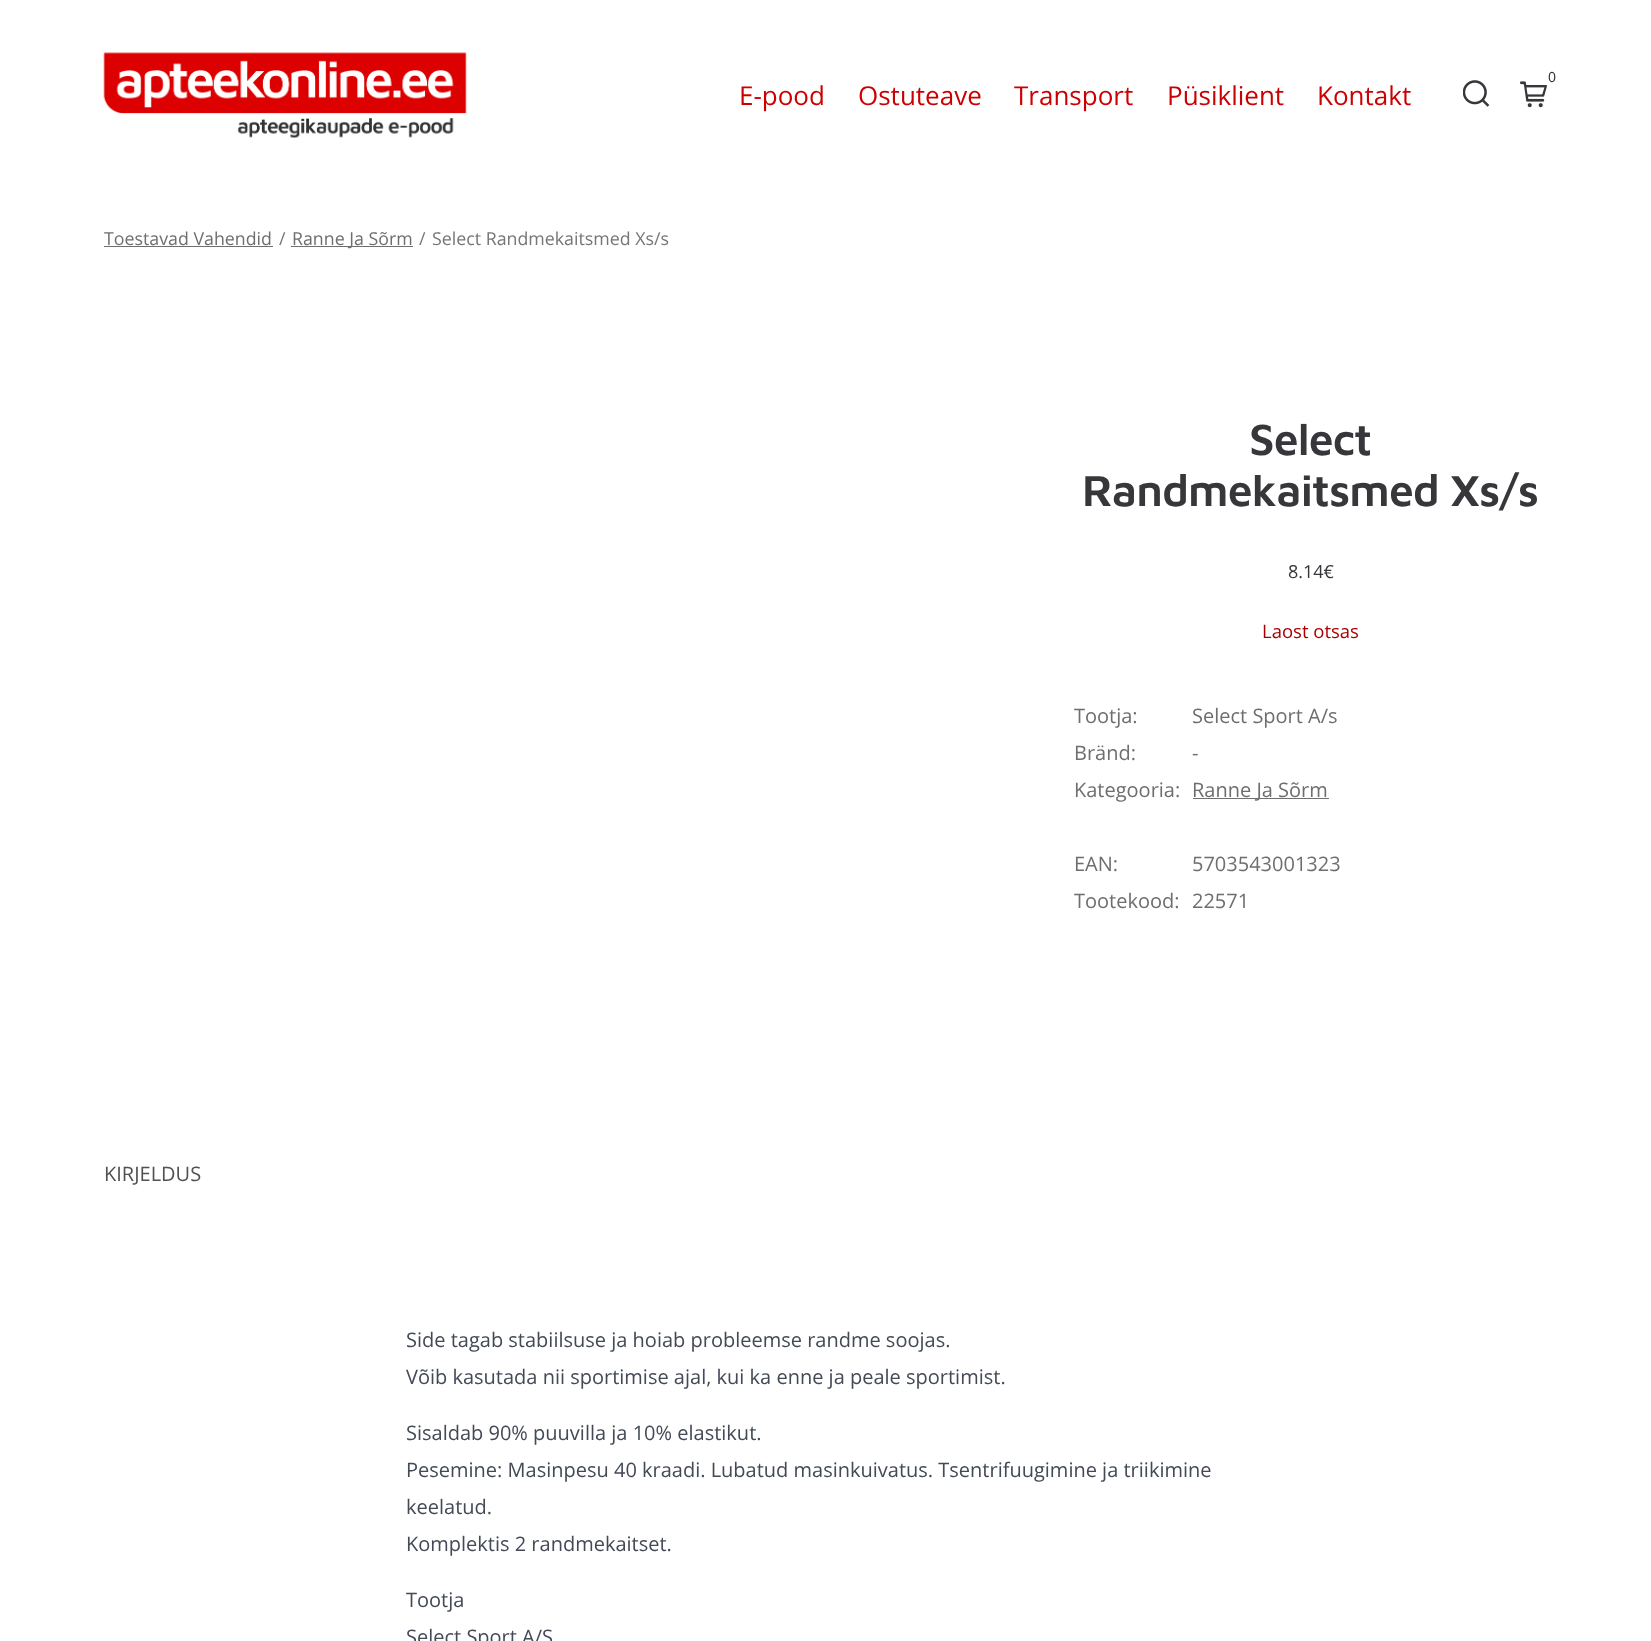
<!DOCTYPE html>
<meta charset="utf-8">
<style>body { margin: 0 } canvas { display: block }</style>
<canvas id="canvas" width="1651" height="1641"></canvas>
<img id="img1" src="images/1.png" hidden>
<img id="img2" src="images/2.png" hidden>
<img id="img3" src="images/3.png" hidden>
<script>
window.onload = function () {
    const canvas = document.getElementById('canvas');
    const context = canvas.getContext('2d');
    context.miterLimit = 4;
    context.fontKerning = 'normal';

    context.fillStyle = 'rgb(255, 255, 255)';
    context.fillRect(0, 0, 1651, 1641);
    context.drawImage(document.getElementById('img1'), 1520, 81, 27, 27);
    context.drawImage(document.getElementById('img2'), 1463, 80, 27, 27);
    context.drawImage(document.getElementById('img3'), 103, 52, 364, 86);
    context.fillStyle = 'rgb(110, 110, 110)';
    context.fillRect(104, 246, 169, 1);
    context.fillRect(291, 246, 122, 1);
    context.fillRect(1193, 798, 136, 1);
    context.font = '14px Noto Sans';
    context.fillStyle = 'rgb(55, 54, 58)';
    context.fillText('0', 1548, 82);
    context.font = '26px Open Sans';
    context.fillStyle = 'rgb(204, 0, 0)';
    context.fillText('E-pood', 739, 105);
    context.fillText('Ostuteave', 858, 105);
    context.fillText('Transport', 1014, 105);
    context.fillText('Püsiklient', 1167, 105);
    context.fillText('Kontakt', 1317, 105);
    context.font = '17.8px Open Sans';
    context.fillStyle = 'rgb(110, 110, 110)';
    context.fillText('Toestavad Vahendid', 104, 245);
    context.fillStyle = 'rgb(118, 118, 118)';
    context.fillText('/', 279, 245);
    context.fillStyle = 'rgb(110, 110, 110)';
    context.fillText('Ranne Ja Sõrm', 292, 245);
    context.fillStyle = 'rgb(118, 118, 118)';
    context.fillText('/', 419, 245);
    context.fillText('Select Randmekaitsmed Xs/s', 432, 245);
    context.letterSpacing = '-0.9px';
    context.font = '600 44.75px Maven Pro';
    context.fillStyle = 'rgb(55, 54, 58)';
    context.fillText('Select', 1249, 455);
    context.fillText('Randmekaitsmed Xs/s', 1082, 506);
    context.letterSpacing = '0px';
    context.font = '18px Open Sans';
    context.fillText('8.14€', 1288, 578);
    context.font = '18.5px Open Sans';
    context.fillStyle = 'rgb(170, 0, 0)';
    context.fillText('Laost otsas', 1262, 638);
    context.font = '20px Open Sans';
    context.fillStyle = 'rgb(110, 110, 110)';
    context.fillText('Tootja:', 1074, 723);
    context.fillText('Select Sport A/s', 1192, 723);
    context.fillText('Bränd:', 1074, 760);
    context.fillText('-', 1192, 760);
    context.fillText('Kategooria:', 1074, 797);
    context.fillText('Ranne Ja Sõrm', 1192, 797);
    context.fillText('EAN:', 1074, 871);
    context.fillText('5703543001323', 1192, 871);
    context.fillText('Tootekood:', 1074, 908);
    context.fillText('22571', 1192, 908);
    context.fillStyle = 'rgb(81, 81, 81)';
    context.fillText('KIRJELDUS', 104, 1181);
    context.fillStyle = 'rgb(67, 74, 86)';
    context.fillText('Side tagab stabiilsuse ja hoiab probleemse randme soojas.', 406, 1347);
    context.fillText('Võib kasutada nii sportimise ajal, kui ka enne ja peale sportimist.', 406, 1384);
    context.fillText('Sisaldab 90% puuvilla ja 10% elastikut.', 406, 1440);
    context.fillText('Pesemine: Masinpesu 40 kraadi. Lubatud masinkuivatus. Tsentrifuugimine ja triikimine', 406, 1477);
    context.fillText('keelatud.', 406, 1514);
    context.fillText('Komplektis 2 randmekaitset.', 406, 1551);
    context.fillText('Tootja', 406, 1607);
    context.fillText('Select Sport A/S', 406, 1644);
};
</script>
